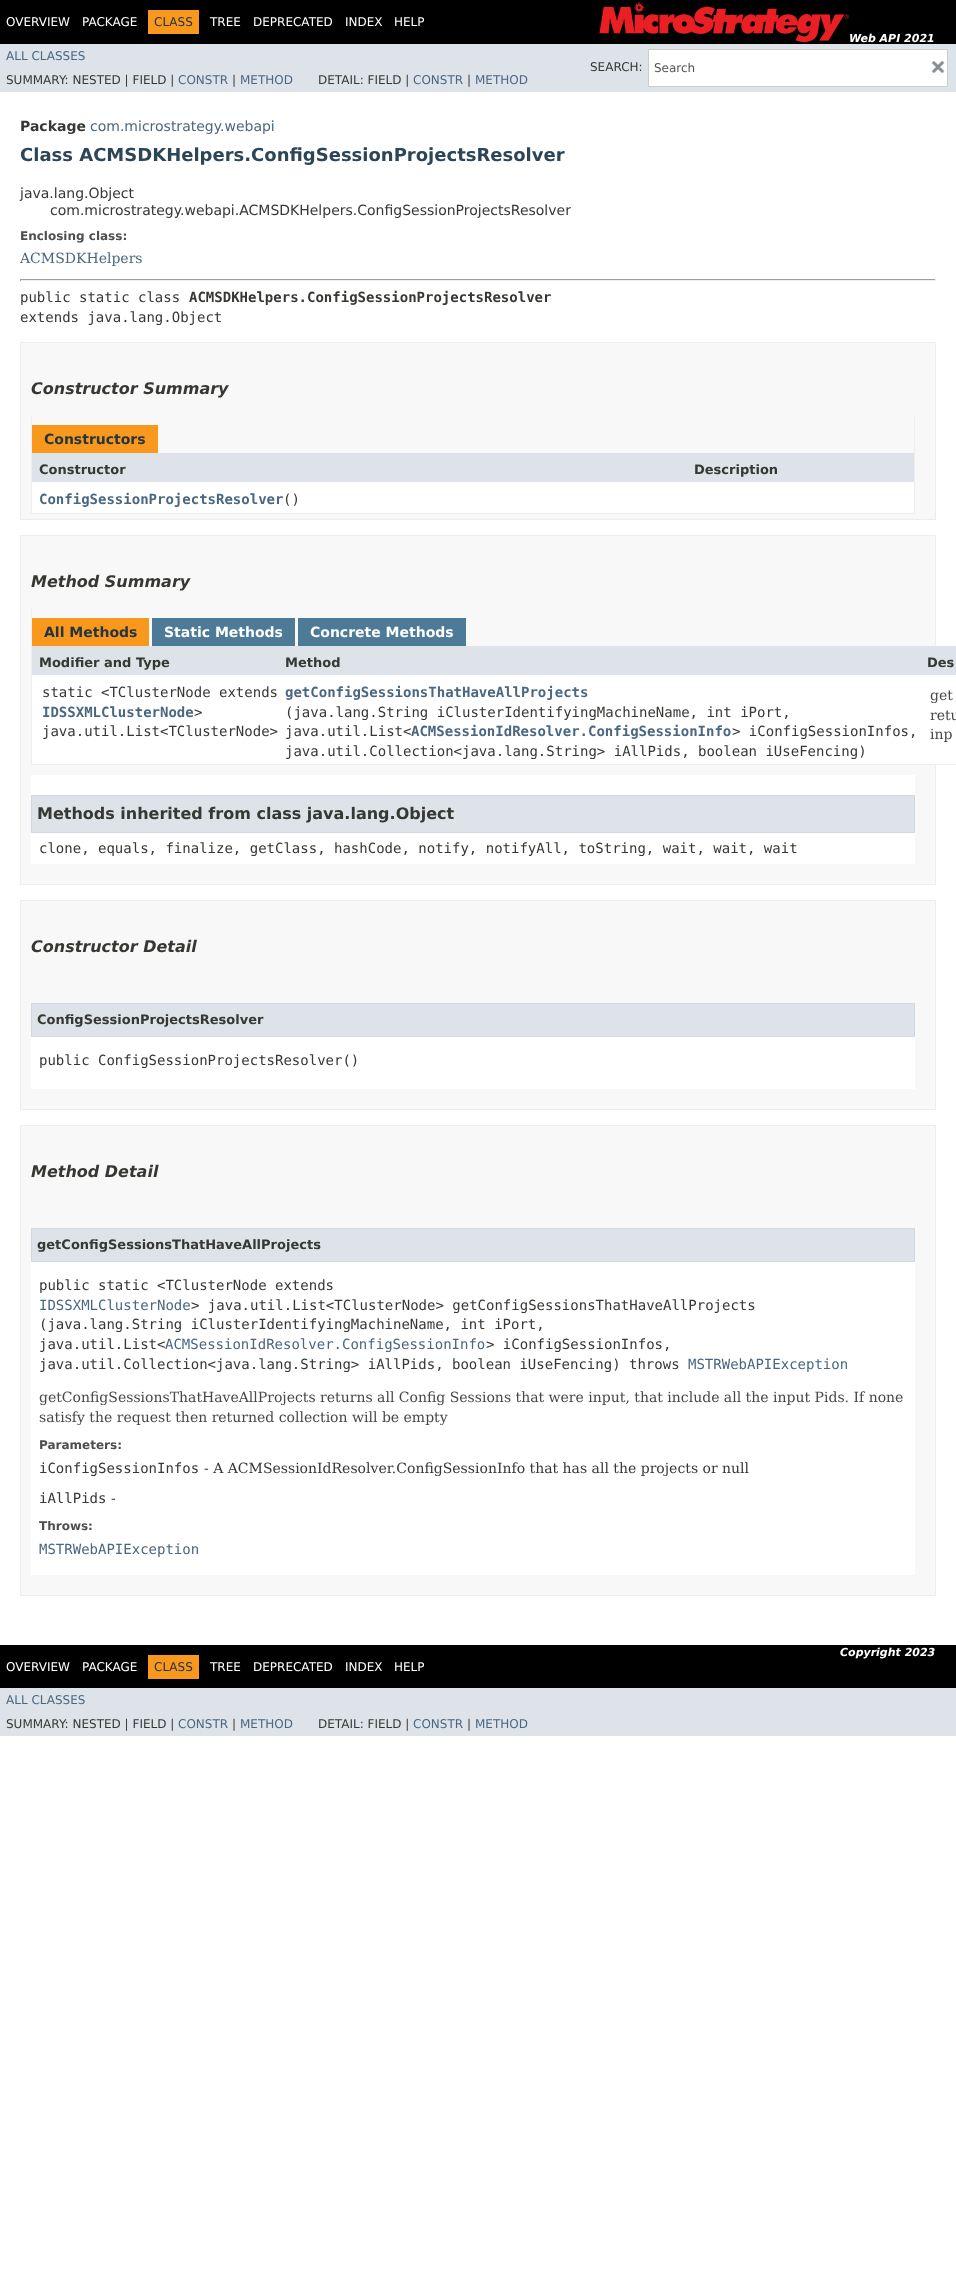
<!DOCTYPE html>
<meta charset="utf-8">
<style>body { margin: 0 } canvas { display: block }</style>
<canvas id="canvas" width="956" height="2288"></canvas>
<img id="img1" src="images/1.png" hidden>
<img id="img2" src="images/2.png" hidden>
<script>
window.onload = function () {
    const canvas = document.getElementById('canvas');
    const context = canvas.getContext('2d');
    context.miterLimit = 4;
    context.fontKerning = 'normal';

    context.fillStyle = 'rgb(255, 255, 255)';
    context.fillRect(0, 0, 956, 2288);
    context.fillStyle = 'rgb(0, 0, 0)';
    context.fillRect(0, 0, 956, 44);
    context.fillStyle = 'rgb(248, 152, 29)';
    context.fillRect(148, 10, 51, 24);
    context.drawImage(document.getElementById('img1'), 599, 1, 250, 41);
    context.fillStyle = 'rgb(222, 227, 233)';
    context.fillRect(0, 44, 956, 48);
    context.fillStyle = 'rgb(255, 255, 255)';
    context.beginPath();
    context.rect(648.5, 49.5, 299, 37);
    context.fill();
    context.strokeStyle = 'rgb(204, 204, 204)';
    context.stroke();
    context.drawImage(document.getElementById('img2'), 931, 61, 14, 12);
    context.fillStyle = 'rgb(159, 159, 159)';
    context.fillRect(20, 279, 916, 1);
    context.fillStyle = 'rgb(238, 238, 238)';
    context.fillRect(935, 279, 1, 2);
    context.fillRect(20, 280, 916, 1);
    context.fillStyle = 'rgb(159, 159, 159)';
    context.fillRect(20, 279, 1, 2);
    context.fillStyle = 'rgb(248, 248, 248)';
    context.beginPath();
    context.rect(20.5, 342.5, 915, 177);
    context.fill();
    context.strokeStyle = 'rgb(237, 237, 237)';
    context.stroke();
    context.fillStyle = 'rgb(238, 238, 238)';
    context.fillRect(914, 415, 1, 99);
    context.fillRect(31, 513, 884, 1);
    context.fillRect(31, 415, 1, 99);
    context.fillStyle = 'rgb(248, 152, 29)';
    context.fillRect(32, 425, 126, 28);
    context.fillStyle = 'rgb(222, 227, 233)';
    context.fillRect(32, 453, 882, 29);
    context.fillStyle = 'rgb(255, 255, 255)';
    context.fillRect(32, 482, 882, 31);
    context.fillStyle = 'rgb(248, 248, 248)';
    context.beginPath();
    context.rect(20.5, 535.5, 915, 349);
    context.fill();
    context.stroke();
    context.fillStyle = 'rgb(238, 238, 238)';
    context.fillRect(31, 764, 925, 1);
    context.fillRect(31, 608, 1, 157);
    context.fillStyle = 'rgb(248, 152, 29)';
    context.fillRect(32, 618, 117, 28);
    context.fillStyle = 'rgb(77, 122, 151)';
    context.fillRect(152, 618, 143, 28);
    context.fillRect(298, 618, 168, 28);
    context.fillStyle = 'rgb(222, 227, 233)';
    context.fillRect(32, 646, 924, 29);
    context.fillStyle = 'rgb(255, 255, 255)';
    context.fillRect(32, 675, 904, 89);
    context.fillRect(31, 775, 884, 89);
    context.fillStyle = 'rgb(222, 227, 233)';
    context.beginPath();
    context.rect(31.5, 795.5, 883, 37);
    context.fill();
    context.strokeStyle = 'rgb(208, 217, 224)';
    context.stroke();
    context.fillStyle = 'rgb(248, 248, 248)';
    context.beginPath();
    context.rect(20.5, 900.5, 915, 209);
    context.fill();
    context.strokeStyle = 'rgb(237, 237, 237)';
    context.stroke();
    context.fillStyle = 'rgb(255, 255, 255)';
    context.fillRect(31, 1037, 884, 52);
    context.fillStyle = 'rgb(222, 227, 233)';
    context.beginPath();
    context.rect(31.5, 1003.5, 883, 33);
    context.fill();
    context.strokeStyle = 'rgb(208, 217, 224)';
    context.stroke();
    context.fillStyle = 'rgb(248, 248, 248)';
    context.beginPath();
    context.rect(20.5, 1125.5, 915, 470);
    context.fill();
    context.strokeStyle = 'rgb(237, 237, 237)';
    context.stroke();
    context.fillStyle = 'rgb(255, 255, 255)';
    context.fillRect(31, 1262, 884, 313);
    context.fillStyle = 'rgb(222, 227, 233)';
    context.beginPath();
    context.rect(31.5, 1228.5, 883, 33);
    context.fill();
    context.strokeStyle = 'rgb(208, 217, 224)';
    context.stroke();
    context.fillStyle = 'rgb(0, 0, 0)';
    context.fillRect(0, 1645, 956, 43);
    context.fillStyle = 'rgb(248, 152, 29)';
    context.fillRect(148, 1655, 51, 24);
    context.fillStyle = 'rgb(222, 227, 233)';
    context.fillRect(0, 1688, 956, 48);
    context.font = '12px DejaVu Sans';
    context.fillStyle = 'rgb(255, 255, 255)';
    context.fillText('OVERVIEW', 6, 26);
    context.fillText('PACKAGE', 82, 26);
    context.fillStyle = 'rgb(37, 52, 65)';
    context.fillText('CLASS', 154, 26);
    context.fillStyle = 'rgb(255, 255, 255)';
    context.fillText('TREE', 210, 26);
    context.fillText('DEPRECATED', 253, 26);
    context.fillText('INDEX', 345, 26);
    context.fillText('HELP', 394, 26);
    context.font = 'italic bold 11px DejaVu Sans';
    context.fillText('Web API 2021', 849, 42);
    context.font = '12px DejaVu Sans';
    context.fillStyle = 'rgb(74, 103, 130)';
    context.fillText('ALL CLASSES', 6, 60);
    context.fillStyle = 'rgb(53, 56, 51)';
    context.fillText('SEARCH:', 590, 71);
    context.fillStyle = 'rgb(85, 85, 85)';
    context.fillText('Search', 654, 72);
    context.fillStyle = 'rgb(53, 56, 51)';
    context.fillText('SUMMARY: NESTED | FIELD |', 6, 84);
    context.fillStyle = 'rgb(74, 103, 130)';
    context.fillText('CONSTR', 178, 84);
    context.fillStyle = 'rgb(53, 56, 51)';
    context.fillText('|', 232, 84);
    context.fillStyle = 'rgb(74, 103, 130)';
    context.fillText('METHOD', 240, 84);
    context.fillStyle = 'rgb(53, 56, 51)';
    context.fillText('DETAIL: FIELD |', 318, 84);
    context.fillStyle = 'rgb(74, 103, 130)';
    context.fillText('CONSTR', 413, 84);
    context.fillStyle = 'rgb(53, 56, 51)';
    context.fillText('|', 467, 84);
    context.fillStyle = 'rgb(74, 103, 130)';
    context.fillText('METHOD', 475, 84);
    context.font = 'bold 14px DejaVu Sans';
    context.fillStyle = 'rgb(53, 56, 51)';
    context.fillText('Package', 20, 131);
    context.font = '14px DejaVu Sans';
    context.fillStyle = 'rgb(74, 103, 130)';
    context.fillText('com.microstrategy.webapi', 90, 131);
    context.font = 'bold 18px DejaVu Sans';
    context.fillStyle = 'rgb(44, 69, 87)';
    context.fillText('Class ACMSDKHelpers.ConfigSessionProjectsResolver', 20, 161);
    context.font = '14px DejaVu Sans';
    context.fillStyle = 'rgb(53, 56, 51)';
    context.fillText('java.lang.Object', 20, 198);
    context.fillText('com.microstrategy.webapi.ACMSDKHelpers.ConfigSessionProjectsResolver', 50, 215);
    context.font = 'bold 12px DejaVu Sans';
    context.fillStyle = 'rgb(78, 78, 78)';
    context.fillText('Enclosing class:', 20, 240);
    context.font = '14px DejaVu Serif';
    context.fillStyle = 'rgb(74, 103, 130)';
    context.fillText('ACMSDKHelpers', 20, 263);
    context.font = '14px DejaVu Sans Mono';
    context.fillStyle = 'rgb(53, 56, 51)';
    context.fillText('public static class', 20, 302);
    context.font = 'bold 14px DejaVu Sans Mono';
    context.fillText('ACMSDKHelpers.ConfigSessionProjectsResolver', 189, 302);
    context.font = '14px DejaVu Sans Mono';
    context.fillText('extends java.lang.Object', 20, 322);
    context.font = 'italic bold 16px DejaVu Sans';
    context.fillText('Constructor Summary', 31, 394);
    context.font = 'bold 14px DejaVu Sans';
    context.fillStyle = 'rgb(37, 52, 65)';
    context.fillText('Constructors', 44, 444);
    context.font = 'bold 13px DejaVu Sans';
    context.fillStyle = 'rgb(53, 56, 51)';
    context.fillText('Constructor', 39, 474);
    context.fillText('Description', 694, 474);
    context.font = 'bold 14px DejaVu Sans Mono';
    context.fillStyle = 'rgb(74, 103, 130)';
    context.fillText('ConfigSessionProjectsResolver', 39, 504);
    context.font = '14px DejaVu Sans Mono';
    context.fillStyle = 'rgb(53, 56, 51)';
    context.fillText('()', 283, 504);
    context.font = 'italic bold 16px DejaVu Sans';
    context.fillText('Method Summary', 31, 587);
    context.font = 'bold 14px DejaVu Sans';
    context.fillStyle = 'rgb(37, 52, 65)';
    context.fillText('All Methods', 44, 637);
    context.fillStyle = 'rgb(255, 255, 255)';
    context.fillText('Static Methods', 164, 637);
    context.fillText('Concrete Methods', 310, 637);
    context.font = 'bold 13px DejaVu Sans';
    context.fillStyle = 'rgb(53, 56, 51)';
    context.fillText('Modifier and Type', 39, 667);
    context.fillText('Method', 285, 667);
    context.fillText('Des', 927, 667);
    context.font = '14px DejaVu Sans Mono';
    context.fillText('static <TClusterNode extends', 42, 697);
    context.font = 'bold 14px DejaVu Sans Mono';
    context.fillStyle = 'rgb(74, 103, 130)';
    context.fillText('IDSSXMLClusterNode', 42, 717);
    context.font = '14px DejaVu Sans Mono';
    context.fillStyle = 'rgb(53, 56, 51)';
    context.fillText('>', 194, 717);
    context.fillText('java.util.List<TClusterNode>', 42, 736);
    context.font = 'bold 14px DejaVu Sans Mono';
    context.fillStyle = 'rgb(74, 103, 130)';
    context.fillText('getConfigSessionsThatHaveAllProjects', 285, 697);
    context.font = '14px DejaVu Sans Mono';
    context.fillStyle = 'rgb(53, 56, 51)';
    context.fillText('(java.lang.String iClusterIdentifyingMachineName, int iPort,', 285, 717);
    context.fillText('java.util.List<', 285, 736);
    context.font = 'bold 14px DejaVu Sans Mono';
    context.fillStyle = 'rgb(74, 103, 130)';
    context.fillText('ACMSessionIdResolver.ConfigSessionInfo', 411, 736);
    context.font = '14px DejaVu Sans Mono';
    context.fillStyle = 'rgb(53, 56, 51)';
    context.fillText('> iConfigSessionInfos,', 732, 736);
    context.fillText('java.util.Collection<java.lang.String> iAllPids, boolean iUseFencing)', 285, 756);
    context.font = '14px DejaVu Serif';
    context.fillStyle = 'rgb(71, 71, 71)';
    context.fillText('get', 930, 700);
    context.fillText('retu', 930, 720);
    context.fillText('inp', 930, 739);
    context.font = 'bold 16px DejaVu Sans';
    context.fillStyle = 'rgb(53, 56, 51)';
    context.fillText('Methods inherited from class java.lang.Object', 37, 819);
    context.font = '14px DejaVu Sans Mono';
    context.fillText('clone, equals, finalize, getClass, hashCode, notify, notifyAll, toString, wait, wait, wait', 39, 853);
    context.font = 'italic bold 16px DejaVu Sans';
    context.fillText('Constructor Detail', 31, 952);
    context.font = 'bold 13px DejaVu Sans';
    context.fillText('ConfigSessionProjectsResolver', 37, 1024);
    context.font = '14px DejaVu Sans Mono';
    context.fillText('public ConfigSessionProjectsResolver()', 39, 1065);
    context.font = 'italic bold 16px DejaVu Sans';
    context.fillText('Method Detail', 31, 1177);
    context.font = 'bold 13px DejaVu Sans';
    context.fillText('getConfigSessionsThatHaveAllProjects', 37, 1249);
    context.font = '14px DejaVu Sans Mono';
    context.fillText('public static <TClusterNode extends', 39, 1290);
    context.fillStyle = 'rgb(74, 103, 130)';
    context.fillText('IDSSXMLClusterNode', 39, 1310);
    context.fillStyle = 'rgb(53, 56, 51)';
    context.fillText('> java.util.List<TClusterNode> getConfigSessionsThatHaveAllProjects', 191, 1310);
    context.fillText('(java.lang.String iClusterIdentifyingMachineName, int iPort,', 39, 1329);
    context.fillText('java.util.List<', 39, 1349);
    context.fillStyle = 'rgb(74, 103, 130)';
    context.fillText('ACMSessionIdResolver.ConfigSessionInfo', 165, 1349);
    context.fillStyle = 'rgb(53, 56, 51)';
    context.fillText('> iConfigSessionInfos,', 486, 1349);
    context.fillText('java.util.Collection<java.lang.String> iAllPids, boolean iUseFencing) throws', 39, 1369);
    context.fillStyle = 'rgb(74, 103, 130)';
    context.fillText('MSTRWebAPIException', 688, 1369);
    context.font = '14px DejaVu Serif';
    context.fillStyle = 'rgb(71, 71, 71)';
    context.fillText('getConfigSessionsThatHaveAllProjects returns all Config Sessions that were input, that include all the input Pids. If none', 39, 1402);
    context.fillText('satisfy the request then returned collection will be empty', 39, 1422);
    context.font = 'bold 12px DejaVu Sans';
    context.fillStyle = 'rgb(78, 78, 78)';
    context.fillText('Parameters:', 39, 1449);
    context.font = '14px DejaVu Sans Mono';
    context.fillStyle = 'rgb(53, 56, 51)';
    context.fillText('iConfigSessionInfos', 39, 1473);
    context.font = '14px DejaVu Serif';
    context.fillText('- A ACMSessionIdResolver.ConfigSessionInfo that has all the projects or null', 204, 1473);
    context.font = '14px DejaVu Sans Mono';
    context.fillText('iAllPids', 39, 1503);
    context.font = '14px DejaVu Serif';
    context.fillText('-', 111, 1503);
    context.font = 'bold 12px DejaVu Sans';
    context.fillStyle = 'rgb(78, 78, 78)';
    context.fillText('Throws:', 39, 1530);
    context.font = '14px DejaVu Sans Mono';
    context.fillStyle = 'rgb(74, 103, 130)';
    context.fillText('MSTRWebAPIException', 39, 1554);
    context.font = 'italic bold 11px DejaVu Sans';
    context.fillStyle = 'rgb(255, 255, 255)';
    context.fillText('Copyright 2023', 840, 1656);
    context.font = '12px DejaVu Sans';
    context.fillText('OVERVIEW', 6, 1671);
    context.fillText('PACKAGE', 82, 1671);
    context.fillStyle = 'rgb(37, 52, 65)';
    context.fillText('CLASS', 154, 1671);
    context.fillStyle = 'rgb(255, 255, 255)';
    context.fillText('TREE', 210, 1671);
    context.fillText('DEPRECATED', 253, 1671);
    context.fillText('INDEX', 345, 1671);
    context.fillText('HELP', 394, 1671);
    context.fillStyle = 'rgb(74, 103, 130)';
    context.fillText('ALL CLASSES', 6, 1704);
    context.fillStyle = 'rgb(53, 56, 51)';
    context.fillText('SUMMARY: NESTED | FIELD |', 6, 1728);
    context.fillStyle = 'rgb(74, 103, 130)';
    context.fillText('CONSTR', 178, 1728);
    context.fillStyle = 'rgb(53, 56, 51)';
    context.fillText('|', 232, 1728);
    context.fillStyle = 'rgb(74, 103, 130)';
    context.fillText('METHOD', 240, 1728);
    context.fillStyle = 'rgb(53, 56, 51)';
    context.fillText('DETAIL: FIELD |', 318, 1728);
    context.fillStyle = 'rgb(74, 103, 130)';
    context.fillText('CONSTR', 413, 1728);
    context.fillStyle = 'rgb(53, 56, 51)';
    context.fillText('|', 467, 1728);
    context.fillStyle = 'rgb(74, 103, 130)';
    context.fillText('METHOD', 475, 1728);
};
</script>
